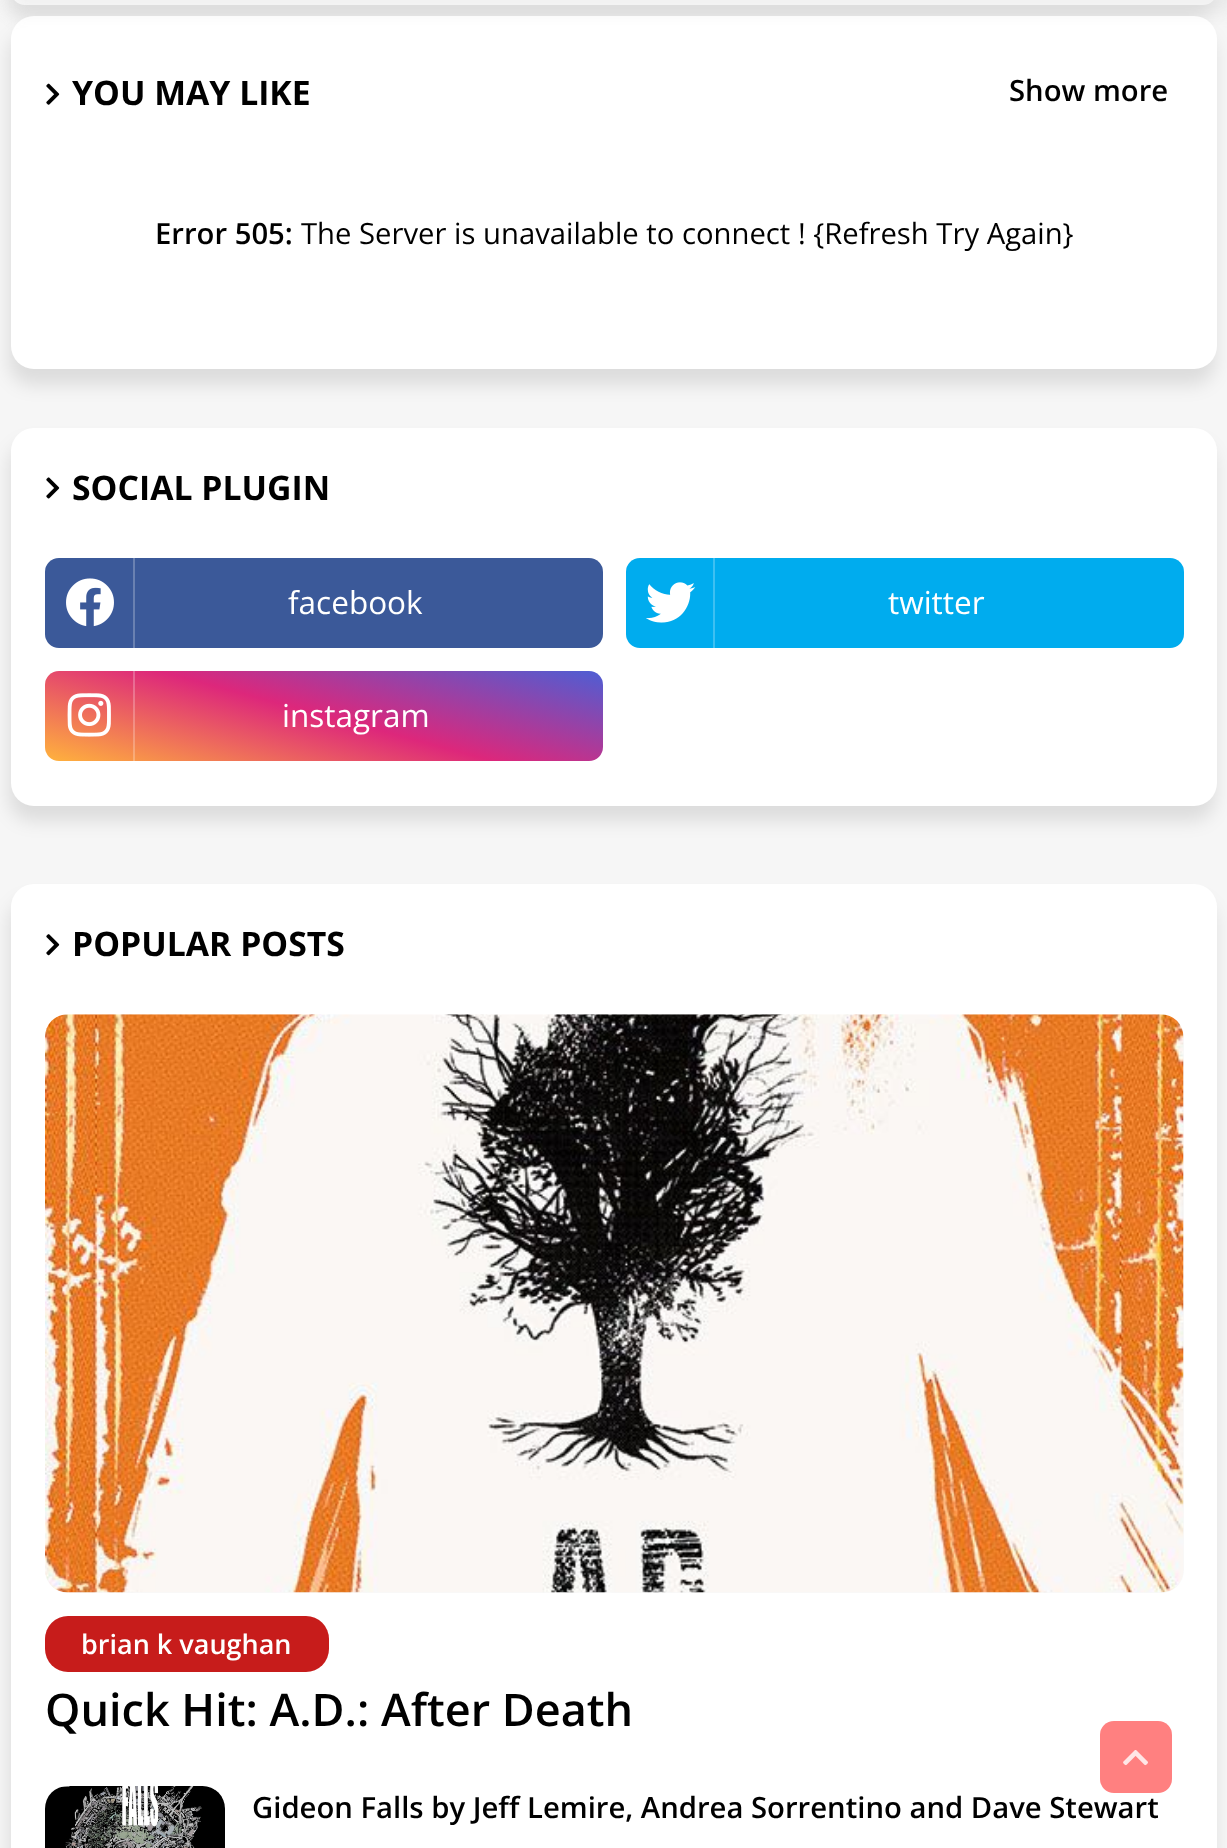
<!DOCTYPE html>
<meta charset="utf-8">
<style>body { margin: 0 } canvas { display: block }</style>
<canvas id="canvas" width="1227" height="1848"></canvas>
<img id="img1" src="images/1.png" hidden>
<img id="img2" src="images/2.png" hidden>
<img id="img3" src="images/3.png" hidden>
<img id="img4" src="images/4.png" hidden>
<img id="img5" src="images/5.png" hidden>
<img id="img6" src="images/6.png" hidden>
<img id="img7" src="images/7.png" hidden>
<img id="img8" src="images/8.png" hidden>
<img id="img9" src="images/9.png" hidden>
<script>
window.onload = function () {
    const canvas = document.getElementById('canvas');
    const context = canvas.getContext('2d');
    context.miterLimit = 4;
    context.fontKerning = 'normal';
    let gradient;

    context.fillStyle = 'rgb(246, 246, 246)';
    context.fillRect(0, 0, 1227, 1848);
    context.fillStyle = 'rgba(0, 0, 0, 0.1)';
    context.filter = 'blur(9px)';
    context.beginPath();
    context.roundRect(9, -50, 1206, 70, 23);
    context.fill();
    context.filter = 'none';
    context.fillStyle = 'rgb(255, 255, 255)';
    context.beginPath();
    context.roundRect(11, -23, 1206, 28, 23);
    context.fill();
    context.fillStyle = 'rgba(0, 0, 0, 0.1)';
    context.filter = 'blur(9px)';
    context.beginPath();
    context.roundRect(9, 32, 1206, 353, 23);
    context.fill();
    context.filter = 'none';
    context.fillStyle = 'rgb(255, 255, 255)';
    context.beginPath();
    context.roundRect(11, 16, 1206, 353, 23);
    context.fill();
    context.fillStyle = 'rgba(224, 223, 223, 0.48)';
    context.filter = 'blur(9px)';
    context.beginPath();
    context.rect(11, -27, 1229, 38);
    context.fill();
    context.filter = 'none';
    context.drawImage(document.getElementById('img1'), 46, 83, 14, 22);
    context.fillStyle = 'rgba(0, 0, 0, 0.1)';
    context.filter = 'blur(9px)';
    context.beginPath();
    context.roundRect(9, 443, 1206, 378, 23);
    context.fill();
    context.filter = 'none';
    context.fillStyle = 'rgb(255, 255, 255)';
    context.beginPath();
    context.roundRect(11, 428, 1206, 378, 23);
    context.fill();
    context.drawImage(document.getElementById('img2'), 46, 477, 14, 22);
    context.fillStyle = 'rgb(59, 89, 153)';
    context.beginPath();
    context.roundRect(45, 558, 558, 90, 14);
    context.fill();
    context.fillStyle = 'rgb(106, 129, 177)';
    context.fillRect(133, 558, 2, 90);
    context.drawImage(document.getElementById('img3'), 66, 578, 48, 49);
    context.fillStyle = 'rgb(0, 172, 238)';
    context.beginPath();
    context.roundRect(626, 558, 558, 90, 14);
    context.fill();
    context.fillStyle = 'rgb(61, 192, 242)';
    context.fillRect(713, 558, 2, 90);
    context.drawImage(document.getElementById('img4'), 646, 582, 50, 41);
    gradient = context.createLinearGradient(294, 827, 354, 604);
    gradient.addColorStop(0, 'rgb(255, 177, 61)');
    gradient.addColorStop(0.5, 'rgb(221, 39, 123)');
    gradient.addColorStop(1, 'rgb(77, 94, 212)');
    context.fillStyle = gradient;
    context.beginPath();
    context.roundRect(45, 671, 558, 90, 14);
    context.fill();
    gradient = context.createLinearGradient(294, 827, 354, 604);
    gradient.addColorStop(0, 'rgb(255, 196, 108)');
    gradient.addColorStop(0.5, 'rgb(229, 91, 155)');
    gradient.addColorStop(1, 'rgb(120, 133, 222)');
    context.fillStyle = gradient;
    context.fillRect(133, 671, 2, 90);
    context.drawImage(document.getElementById('img5'), 67, 693, 44, 44);
    context.fillStyle = 'rgba(0, 0, 0, 0.1)';
    context.filter = 'blur(9px)';
    context.beginPath();
    context.roundRect(9, 900, 1206, 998, 23);
    context.fill();
    context.filter = 'none';
    context.fillStyle = 'rgb(255, 255, 255)';
    context.beginPath();
    context.roundRect(11, 884, 1206, 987, 23);
    context.fill();
    context.drawImage(document.getElementById('img6'), 46, 934, 14, 22);
    context.fillStyle = 'rgb(249, 249, 249)';
    context.beginPath();
    context.roundRect(45, 1015, 1139, 578, 23);
    context.fill();
    context.drawImage(document.getElementById('img7'), 45, 1014, 1139, 579);
    context.fillStyle = 'rgb(199, 28, 27)';
    context.beginPath();
    context.roundRect(45, 1616, 284, 56, 23);
    context.fill();
    context.drawImage(document.getElementById('img8'), 45, 1786, 180, 62);
    context.fillStyle = 'rgb(255, 128, 128)';
    context.beginPath();
    context.roundRect(1100, 1721, 72, 72, 14);
    context.fill();
    context.drawImage(document.getElementById('img9'), 1123, 1750, 25, 16);
    context.font = 'bold 33.75px Open Sans';
    context.fillStyle = 'rgb(0, 0, 0)';
    context.fillText('YOU MAY LIKE', 72, 105);
    context.font = '600 29.25px Open Sans';
    context.fillText('Show more', 1009, 101);
    context.fillText('Error 505:', 155, 244);
    context.font = '29.25px Open Sans';
    context.fillText('The Server is unavailable to connect ! {Refresh Try Again}', 301, 244);
    context.font = 'bold 33.75px Open Sans';
    context.fillText('SOCIAL PLUGIN', 72, 500);
    context.font = '31.5px Open Sans';
    context.fillStyle = 'rgb(255, 255, 255)';
    context.fillText('facebook', 288, 614);
    context.fillText('twitter', 888, 614);
    context.fillText('instagram', 282, 727);
    context.font = 'bold 33.75px Open Sans';
    context.fillStyle = 'rgb(0, 0, 0)';
    context.fillText('POPULAR POSTS', 72, 956);
    context.font = '600 27px Open Sans';
    context.fillStyle = 'rgb(255, 255, 255)';
    context.fillText('brian k vaughan', 81, 1654);
    context.font = '600 45px Open Sans';
    context.fillStyle = 'rgb(0, 0, 0)';
    context.fillText('Quick Hit: A.D.: After Death', 45, 1726);
    context.font = '600 29.25px Open Sans';
    context.fillText('Gideon Falls by Jeff Lemire, Andrea Sorrentino and Dave Stewart', 252, 1818);
};
</script>
